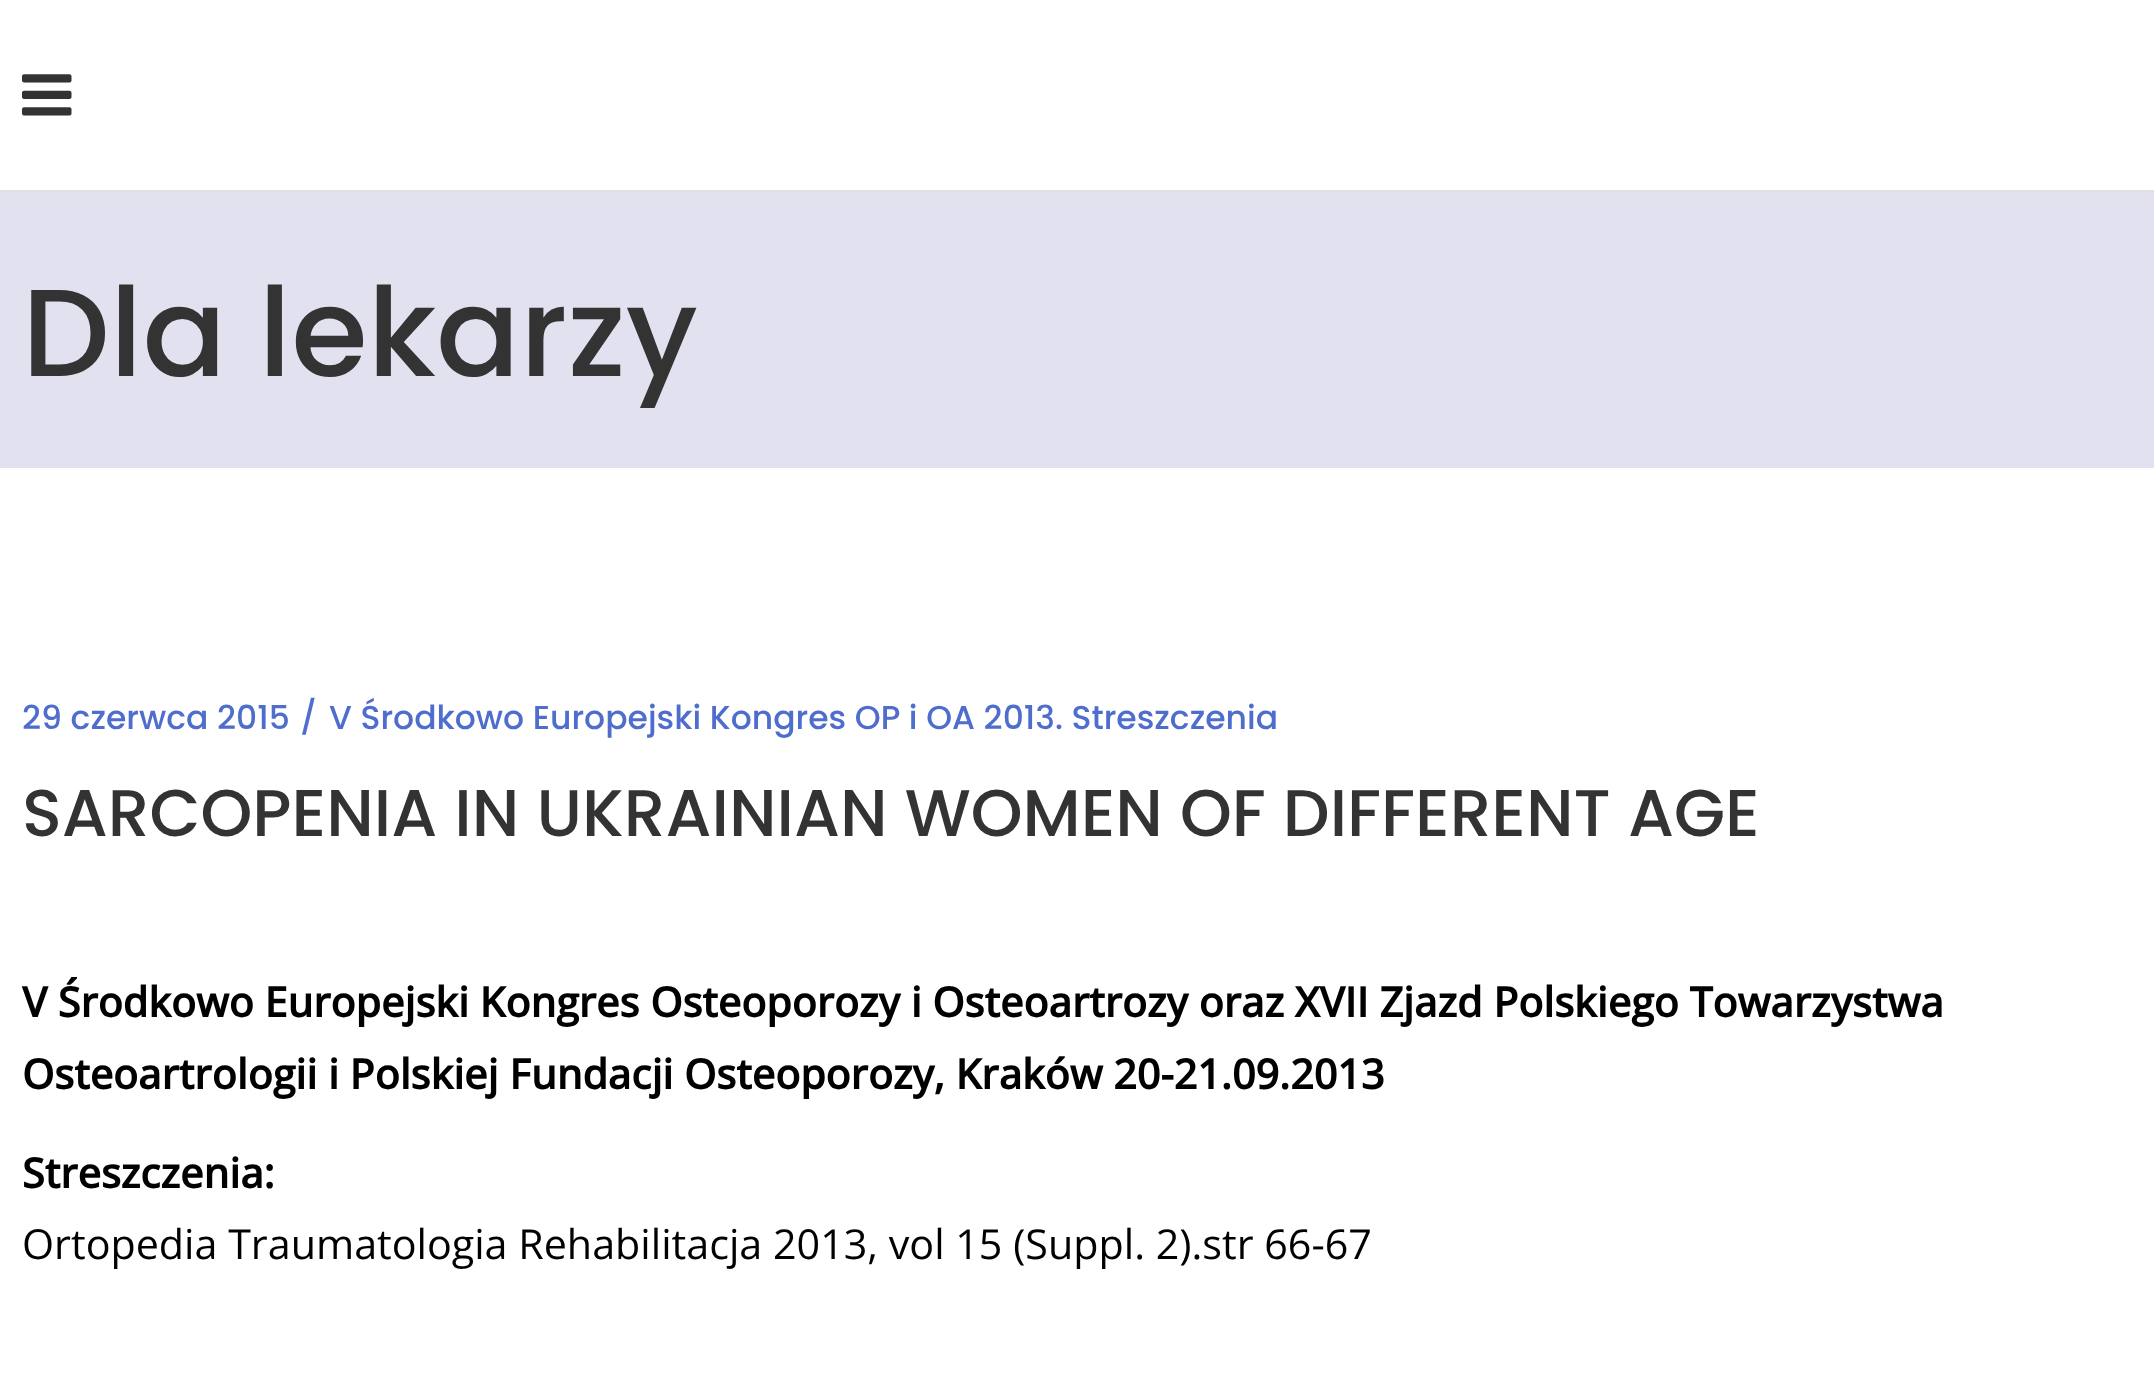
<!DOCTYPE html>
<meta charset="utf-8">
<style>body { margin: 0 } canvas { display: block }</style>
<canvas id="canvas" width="2154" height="1400"></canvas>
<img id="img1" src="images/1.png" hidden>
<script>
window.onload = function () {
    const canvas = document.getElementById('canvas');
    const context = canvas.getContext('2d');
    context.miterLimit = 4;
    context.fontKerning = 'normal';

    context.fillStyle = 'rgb(255, 255, 255)';
    context.fillRect(0, 0, 2154, 1400);
    context.fillStyle = 'rgb(225, 225, 225)';
    context.fillRect(0, 190, 2154, 3);
    context.drawImage(document.getElementById('img1'), 22, 74, 50, 42);
    context.fillStyle = 'rgb(226, 225, 239)';
    context.fillRect(0, 193, 2154, 275);
    context.font = '500 123.75px Poppins';
    context.fillStyle = 'rgb(51, 51, 51)';
    context.fillText('Dla lekarzy', 22, 376);
    context.font = '500 33px Poppins';
    context.fillStyle = 'rgb(78, 109, 204)';
    context.fillText('29 czerwca 2015', 22, 729);
    context.fillText('/', 300, 729);
    context.fillText('V Środkowo Europejski Kongres OP i OA 2013. Streszczenia', 329, 729);
    context.font = '500 66px Poppins';
    context.fillStyle = 'rgb(51, 51, 51)';
    context.fillText('SARCOPENIA IN UKRAINIAN WOMEN OF DIFFERENT AGE', 22, 836);
    context.font = 'bold 41.25px Open Sans';
    context.fillStyle = 'rgb(0, 0, 0)';
    context.fillText('V Środkowo Europejski Kongres Osteoporozy i Osteoartrozy oraz XVII Zjazd Polskiego Towarzystwa', 22, 1017);
    context.fillText('Osteoartrologii i Polskiej Fundacji Osteoporozy, Kraków 20-21.09.2013', 22, 1089);
    context.fillText('Streszczenia:', 22, 1188);
    context.font = '41.25px Open Sans';
    context.fillText('Ortopedia Traumatologia Rehabilitacja 2013, vol 15 (Suppl. 2).str 66-67', 22, 1259);
};
</script>
